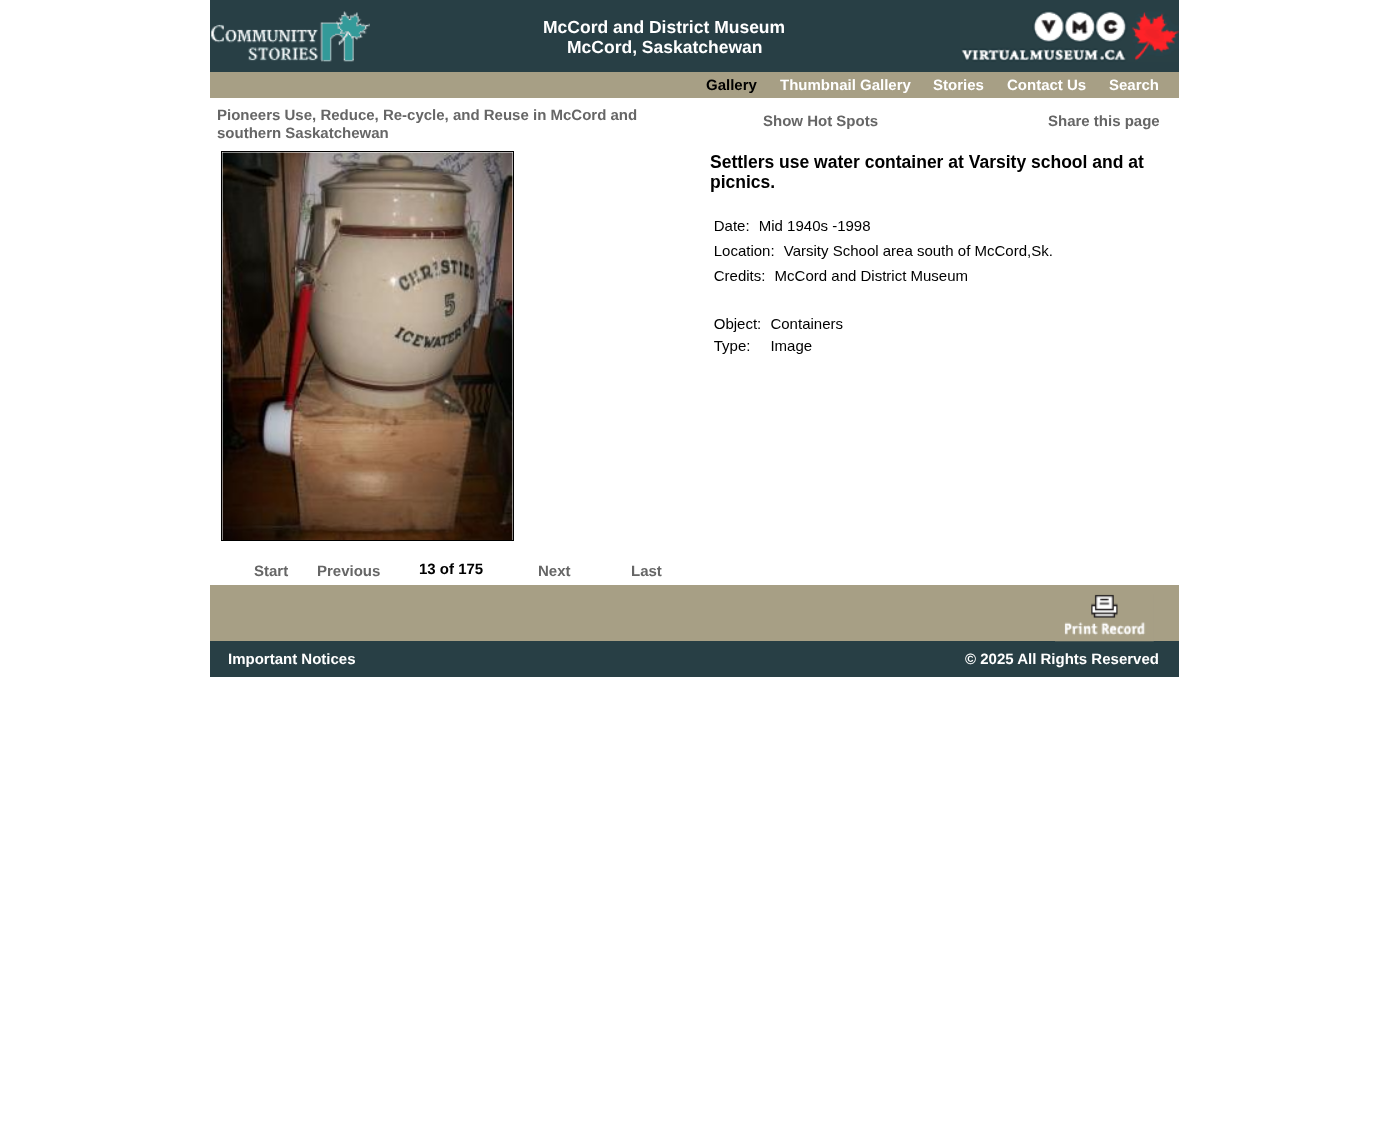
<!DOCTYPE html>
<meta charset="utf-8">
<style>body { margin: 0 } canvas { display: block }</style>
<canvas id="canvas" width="1387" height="1144"></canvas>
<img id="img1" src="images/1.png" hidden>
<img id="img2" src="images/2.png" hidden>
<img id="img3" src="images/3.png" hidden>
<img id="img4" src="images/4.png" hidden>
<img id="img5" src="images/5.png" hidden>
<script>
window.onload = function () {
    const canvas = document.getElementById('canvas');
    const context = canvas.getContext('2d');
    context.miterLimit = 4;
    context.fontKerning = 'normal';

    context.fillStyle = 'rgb(255, 255, 255)';
    context.fillRect(0, 0, 1387, 1144);
    context.fillStyle = 'rgb(40, 63, 69)';
    context.fillRect(210, 0, 969, 72);
    context.drawImage(document.getElementById('img1'), 211, 11, 159, 51);
    context.drawImage(document.getElementById('img2'), 960, 10, 219, 52);
    context.fillStyle = 'rgb(167, 159, 133)';
    context.fillRect(210, 72, 969, 26);
    context.strokeStyle = 'rgb(0, 0, 0)';
    context.strokeRect(221.5, 151.5, 292, 389);
    context.drawImage(document.getElementById('img3'), 222, 152, 291, 388);
    context.drawImage(document.getElementById('img4'), 710, 155, 434, 199);
    context.fillRect(210, 585, 969, 56);
    context.fillStyle = 'rgb(40, 63, 69)';
    context.fillRect(210, 641, 969, 36);
    context.drawImage(document.getElementById('img5'), 1055, 594, 99, 48);
    context.font = 'bold 17.5px Liberation Sans';
    context.fillStyle = 'rgb(255, 255, 255)';
    context.fillText('McCord and District Museum', 543, 33);
    context.fillText('McCord, Saskatchewan', 567, 53);
    context.font = 'bold 15px Liberation Sans';
    context.fillStyle = 'rgb(0, 0, 0)';
    context.fillText('Gallery', 706, 90);
    context.fillStyle = 'rgb(255, 255, 255)';
    context.fillText('Thumbnail Gallery', 780, 90);
    context.fillText('Stories', 933, 90);
    context.fillText('Contact Us', 1007, 90);
    context.fillText('Search', 1109, 90);
    context.fillStyle = 'rgb(102, 102, 102)';
    context.fillText('Pioneers Use, Reduce, Re-cycle, and Reuse in McCord and', 217, 120);
    context.fillText('southern Saskatchewan', 217, 138);
    context.fillText('Show Hot Spots', 763, 126);
    context.fillText('Share this page', 1048, 126);
    context.fillText('Start', 254, 576);
    context.fillText('Previous', 317, 576);
    context.fillStyle = 'rgb(0, 0, 0)';
    context.fillText('13 of 175', 419, 574);
    context.fillStyle = 'rgb(102, 102, 102)';
    context.fillText('Next', 538, 576);
    context.fillText('Last', 631, 576);
    context.fillStyle = 'rgb(255, 255, 255)';
    context.fillText('Important Notices', 228, 664);
    context.fillText('© 2025 All Rights Reserved', 965, 664);
};
</script>
